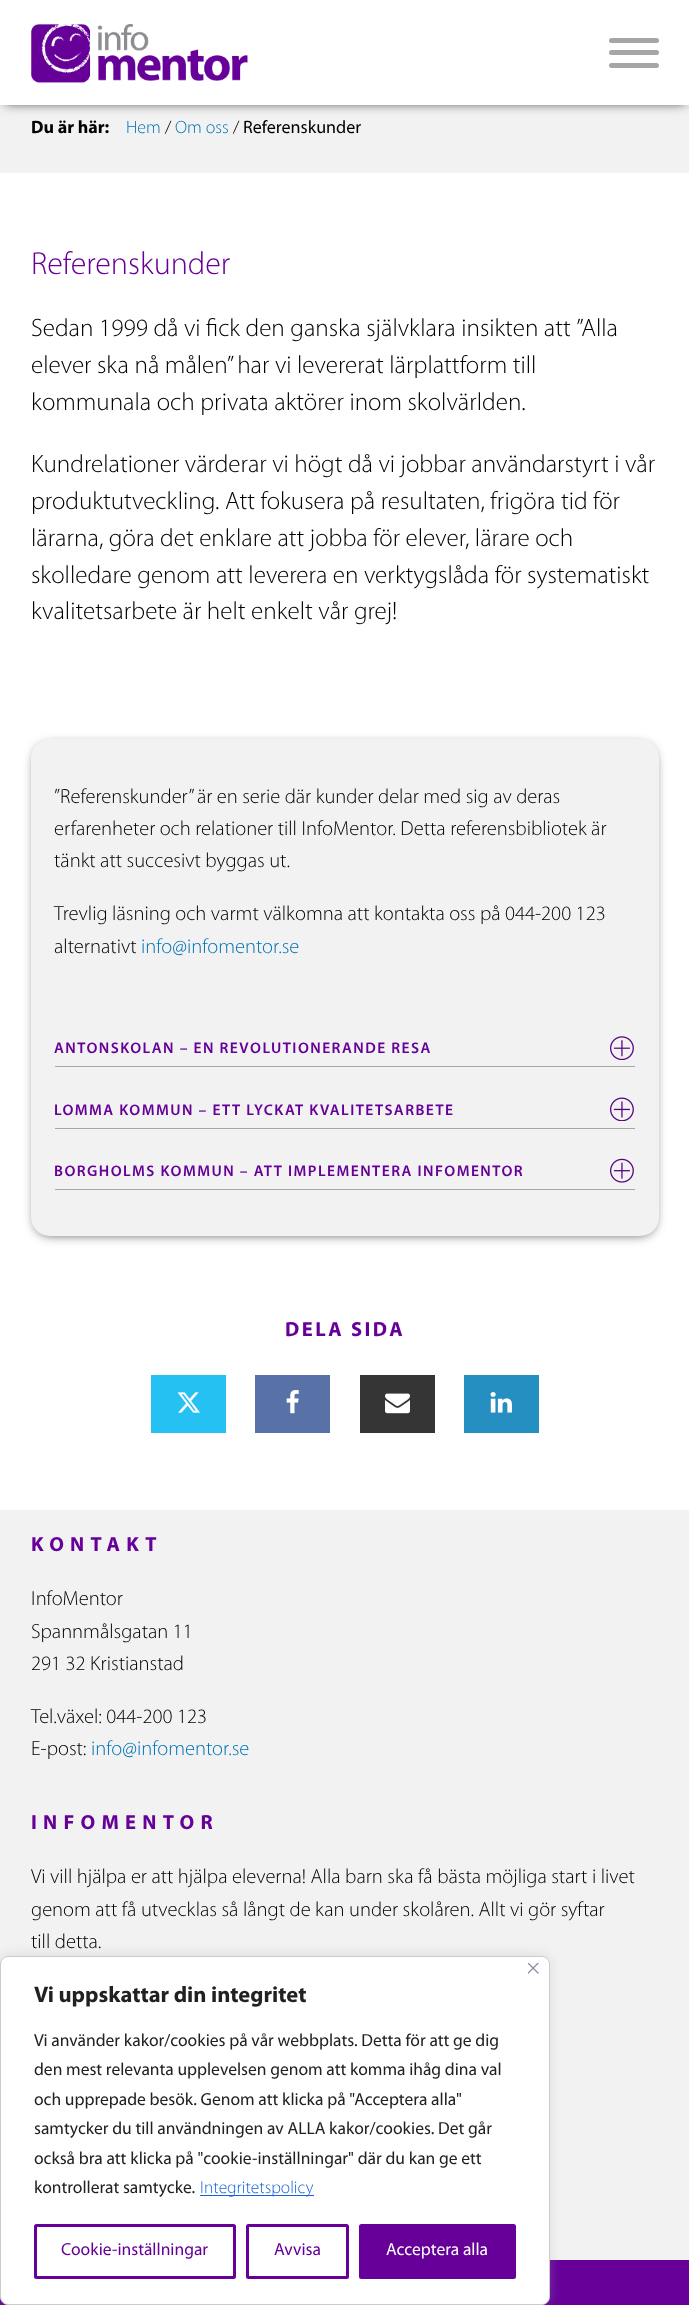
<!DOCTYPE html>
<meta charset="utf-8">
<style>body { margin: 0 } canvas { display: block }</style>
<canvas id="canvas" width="689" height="2305"></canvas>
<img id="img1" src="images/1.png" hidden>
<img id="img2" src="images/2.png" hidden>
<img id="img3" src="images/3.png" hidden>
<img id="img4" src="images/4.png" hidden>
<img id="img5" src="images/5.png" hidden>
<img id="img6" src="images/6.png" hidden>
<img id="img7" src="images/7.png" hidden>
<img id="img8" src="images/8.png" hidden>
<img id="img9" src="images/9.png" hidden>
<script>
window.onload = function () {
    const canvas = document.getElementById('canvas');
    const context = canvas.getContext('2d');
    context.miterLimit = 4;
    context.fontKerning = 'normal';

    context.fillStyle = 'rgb(255, 255, 255)';
    context.fillRect(0, 0, 689, 2305);
    context.fillStyle = 'rgb(242, 242, 242)';
    context.fillRect(0, 105, 689, 68);
    context.fillStyle = 'rgb(51, 51, 51)';
    context.filter = 'blur(6px)';
    context.beginPath();
    context.rect(5, 8, 680, 95);
    context.fill();
    context.filter = 'none';
    context.fillStyle = 'rgb(255, 255, 255)';
    context.fillRect(0, 0, 689, 105);
    context.drawImage(document.getElementById('img1'), 31, 24, 217, 59);
    context.fillStyle = 'rgb(166, 166, 166)';
    context.beginPath();
    context.roundRect(609, 38, 50, 5, 2.5);
    context.fill();
    context.beginPath();
    context.roundRect(609, 50, 50, 5, 2.5);
    context.fill();
    context.beginPath();
    context.roundRect(609, 63, 50, 5, 2.5);
    context.fill();
    context.fillStyle = 'rgb(51, 51, 51)';
    context.filter = 'blur(6px)';
    context.beginPath();
    context.roundRect(36, 746, 618, 488, 14);
    context.fill();
    context.filter = 'none';
    context.fillStyle = 'rgb(242, 242, 242)';
    context.beginPath();
    context.roundRect(31, 739, 628, 497, 19);
    context.fill();
    context.fillStyle = 'rgb(166, 166, 166)';
    context.fillRect(55, 1066, 580, 1);
    context.drawImage(document.getElementById('img2'), 610, 1036, 24, 24);
    context.fillRect(55, 1128, 580, 1);
    context.drawImage(document.getElementById('img3'), 610, 1097, 24, 24);
    context.fillRect(55, 1189, 580, 1);
    context.drawImage(document.getElementById('img4'), 610, 1158, 24, 25);
    context.fillStyle = 'rgb(38, 193, 243)';
    context.fillRect(151, 1375, 75, 58);
    context.drawImage(document.getElementById('img5'), 177, 1392, 23, 21);
    context.fillStyle = 'rgb(88, 114, 167)';
    context.fillRect(255, 1375, 75, 58);
    context.drawImage(document.getElementById('img6'), 286, 1390, 13, 24);
    context.fillStyle = 'rgb(53, 53, 53)';
    context.fillRect(360, 1375, 75, 58);
    context.drawImage(document.getElementById('img7'), 385, 1393, 25, 21);
    context.fillStyle = 'rgb(38, 143, 193)';
    context.fillRect(464, 1375, 75, 58);
    context.drawImage(document.getElementById('img8'), 490, 1392, 22, 21);
    context.fillStyle = 'rgb(242, 242, 242)';
    context.fillRect(0, 1510, 689, 750);
    context.fillStyle = 'rgb(102, 0, 153)';
    context.fillRect(0, 2260, 689, 45);
    context.fillStyle = 'rgba(172, 171, 171, 0.3)';
    context.filter = 'blur(6px)';
    context.beginPath();
    context.roundRect(0, 1955, 550, 349, 8);
    context.fill();
    context.filter = 'none';
    context.fillStyle = 'rgb(255, 255, 255)';
    context.beginPath();
    context.roundRect(0.5, 1956.5, 549, 348, 7.5);
    context.fill();
    context.strokeStyle = 'rgb(204, 204, 204)';
    context.stroke();
    context.drawImage(document.getElementById('img9'), 528, 1963, 11, 11);
    context.fillStyle = 'rgb(24, 99, 220)';
    context.fillRect(200, 2195, 114, 1);
    context.beginPath();
    context.roundRect(35.5, 2225.5, 199, 52, 1);
    context.strokeStyle = 'rgb(102, 0, 153)';
    context.lineWidth = 3;
    context.stroke();
    context.beginPath();
    context.roundRect(247.5, 2225.5, 100, 52, 1);
    context.stroke();
    context.fillStyle = 'rgb(102, 0, 153)';
    context.beginPath();
    context.roundRect(360.5, 2225.5, 154, 52, 1);
    context.fill();
    context.stroke();
    context.font = 'bold 18px Myriad';
    context.fillStyle = 'rgb(0, 0, 0)';
    context.fillText('Du är här:', 31, 133);
    context.font = '300 18px Myriad';
    context.fillStyle = 'rgb(0, 116, 181)';
    context.fillText('Hem', 126, 133);
    context.fillStyle = 'rgb(0, 0, 0)';
    context.fillText('/', 165, 133);
    context.fillStyle = 'rgb(0, 116, 181)';
    context.fillText('Om oss', 175, 133);
    context.fillStyle = 'rgb(0, 0, 0)';
    context.fillText('/', 233, 133);
    context.font = '18px Myriad';
    context.fillText('Referenskunder', 243, 133);
    context.font = '300 32px Myriad';
    context.fillStyle = 'rgb(102, 0, 153)';
    context.fillText('Referenskunder', 31, 274);
    context.font = '300 25.1px Myriad';
    context.fillStyle = 'rgb(0, 0, 0)';
    context.fillText('Sedan 1999 då vi fick den ganska självklara insikten att ”Alla', 31, 336);
    context.fillText('elever ska nå målen” har vi levererat lärplattform till', 31, 373);
    context.fillText('kommunala och privata aktörer inom skolvärlden.', 31, 410);
    context.fillText('Kundrelationer värderar vi högt då vi jobbar användarstyrt i vår', 31, 472);
    context.fillText('produktutveckling. Att fokusera på resultaten, frigöra tid för', 31, 509);
    context.fillText('lärarna, göra det enklare att jobba för elever, lärare och', 31, 546);
    context.fillText('skolledare genom att leverera en verktygslåda för systematiskt', 31, 583);
    context.fillText('kvalitetsarbete är helt enkelt vår grej!', 31, 619);
    context.font = '300 20.5px Myriad';
    context.fillText('”Referenskunder” är en serie där kunder delar med sig av deras', 54, 803);
    context.fillText('erfarenheter och relationer till InfoMentor. Detta referensbibliotek är', 54, 835);
    context.fillText('tänkt att succesivt byggas ut.', 54, 867);
    context.fillText('Trevlig läsning och varmt välkomna att kontakta oss på 044-200 123', 54, 920);
    context.fillText('alternativt', 54, 953);
    context.fillStyle = 'rgb(0, 116, 181)';
    context.fillText('info@infomentor.se', 141, 953);
    context.letterSpacing = '1.45px';
    context.font = '600 15.5px Myriad';
    context.fillStyle = 'rgb(102, 0, 153)';
    context.fillText('ANTONSKOLAN – EN REVOLUTIONERANDE RESA', 54, 1053);
    context.fillText('LOMMA KOMMUN – ETT LYCKAT KVALITETSARBETE', 54, 1115);
    context.fillText('BORGHOLMS KOMMUN – ATT IMPLEMENTERA INFOMENTOR', 54, 1176);
    context.letterSpacing = '2.5px';
    context.font = 'bold 20.5px Myriad';
    context.fillText('DELA SIDA', 285, 1336);
    context.letterSpacing = '6.25px';
    context.fillText('KONTAKT', 31, 1551);
    context.letterSpacing = '0px';
    context.font = '300 20.5px Myriad';
    context.fillStyle = 'rgb(0, 0, 0)';
    context.fillText('InfoMentor', 31, 1605);
    context.fillText('Spannmålsgatan 11', 31, 1638);
    context.fillText('291 32 Kristianstad', 31, 1670);
    context.fillText('Tel.växel: 044-200 123', 31, 1723);
    context.fillText('E-post:', 31, 1755);
    context.fillStyle = 'rgb(0, 116, 181)';
    context.fillText('info@infomentor.se', 91, 1755);
    context.letterSpacing = '6.25px';
    context.font = 'bold 20.5px Myriad';
    context.fillStyle = 'rgb(102, 0, 153)';
    context.fillText('INFOMENTOR', 31, 1829);
    context.letterSpacing = '0px';
    context.font = '300 20.5px Myriad';
    context.fillStyle = 'rgb(0, 0, 0)';
    context.fillText('Vi vill hjälpa er att hjälpa eleverna! Alla barn ska få bästa möjliga start i livet', 31, 1883);
    context.fillText('genom att få utvecklas så långt de kan under skolåren. Allt vi gör syftar', 31, 1916);
    context.fillText('till detta.', 31, 1948);
    context.font = 'bold 22.5px Myriad';
    context.fillStyle = 'rgb(33, 33, 33)';
    context.fillText('Vi uppskattar din integritet', 34, 2002);
    context.font = '17.5px Myriad';
    context.fillText('Vi använder kakor/cookies på vår webbplats. Detta för att ge dig', 34, 2046);
    context.fillText('den mest relevanta upplevelsen genom att komma ihåg dina val', 34, 2075);
    context.fillText('och upprepade besök. Genom att klicka på "Acceptera alla"', 34, 2105);
    context.fillText('samtycker du till användningen av ALLA kakor/cookies. Det går', 34, 2134);
    context.fillText('också bra att klicka på "cookie-inställningar" där du kan ge ett', 34, 2164);
    context.fillText('kontrollerat samtycke.', 34, 2193);
    context.font = '300 17.5px Myriad';
    context.fillStyle = 'rgb(24, 99, 220)';
    context.fillText('Integritetspolicy', 200, 2193);
    context.font = '17.5px Myriad';
    context.fillStyle = 'rgb(102, 0, 153)';
    context.fillText('Cookie-inställningar', 61, 2255);
    context.fillText('Avvisa', 274, 2255);
    context.fillStyle = 'rgb(255, 255, 255)';
    context.fillText('Acceptera alla', 386, 2255);
};
</script>
